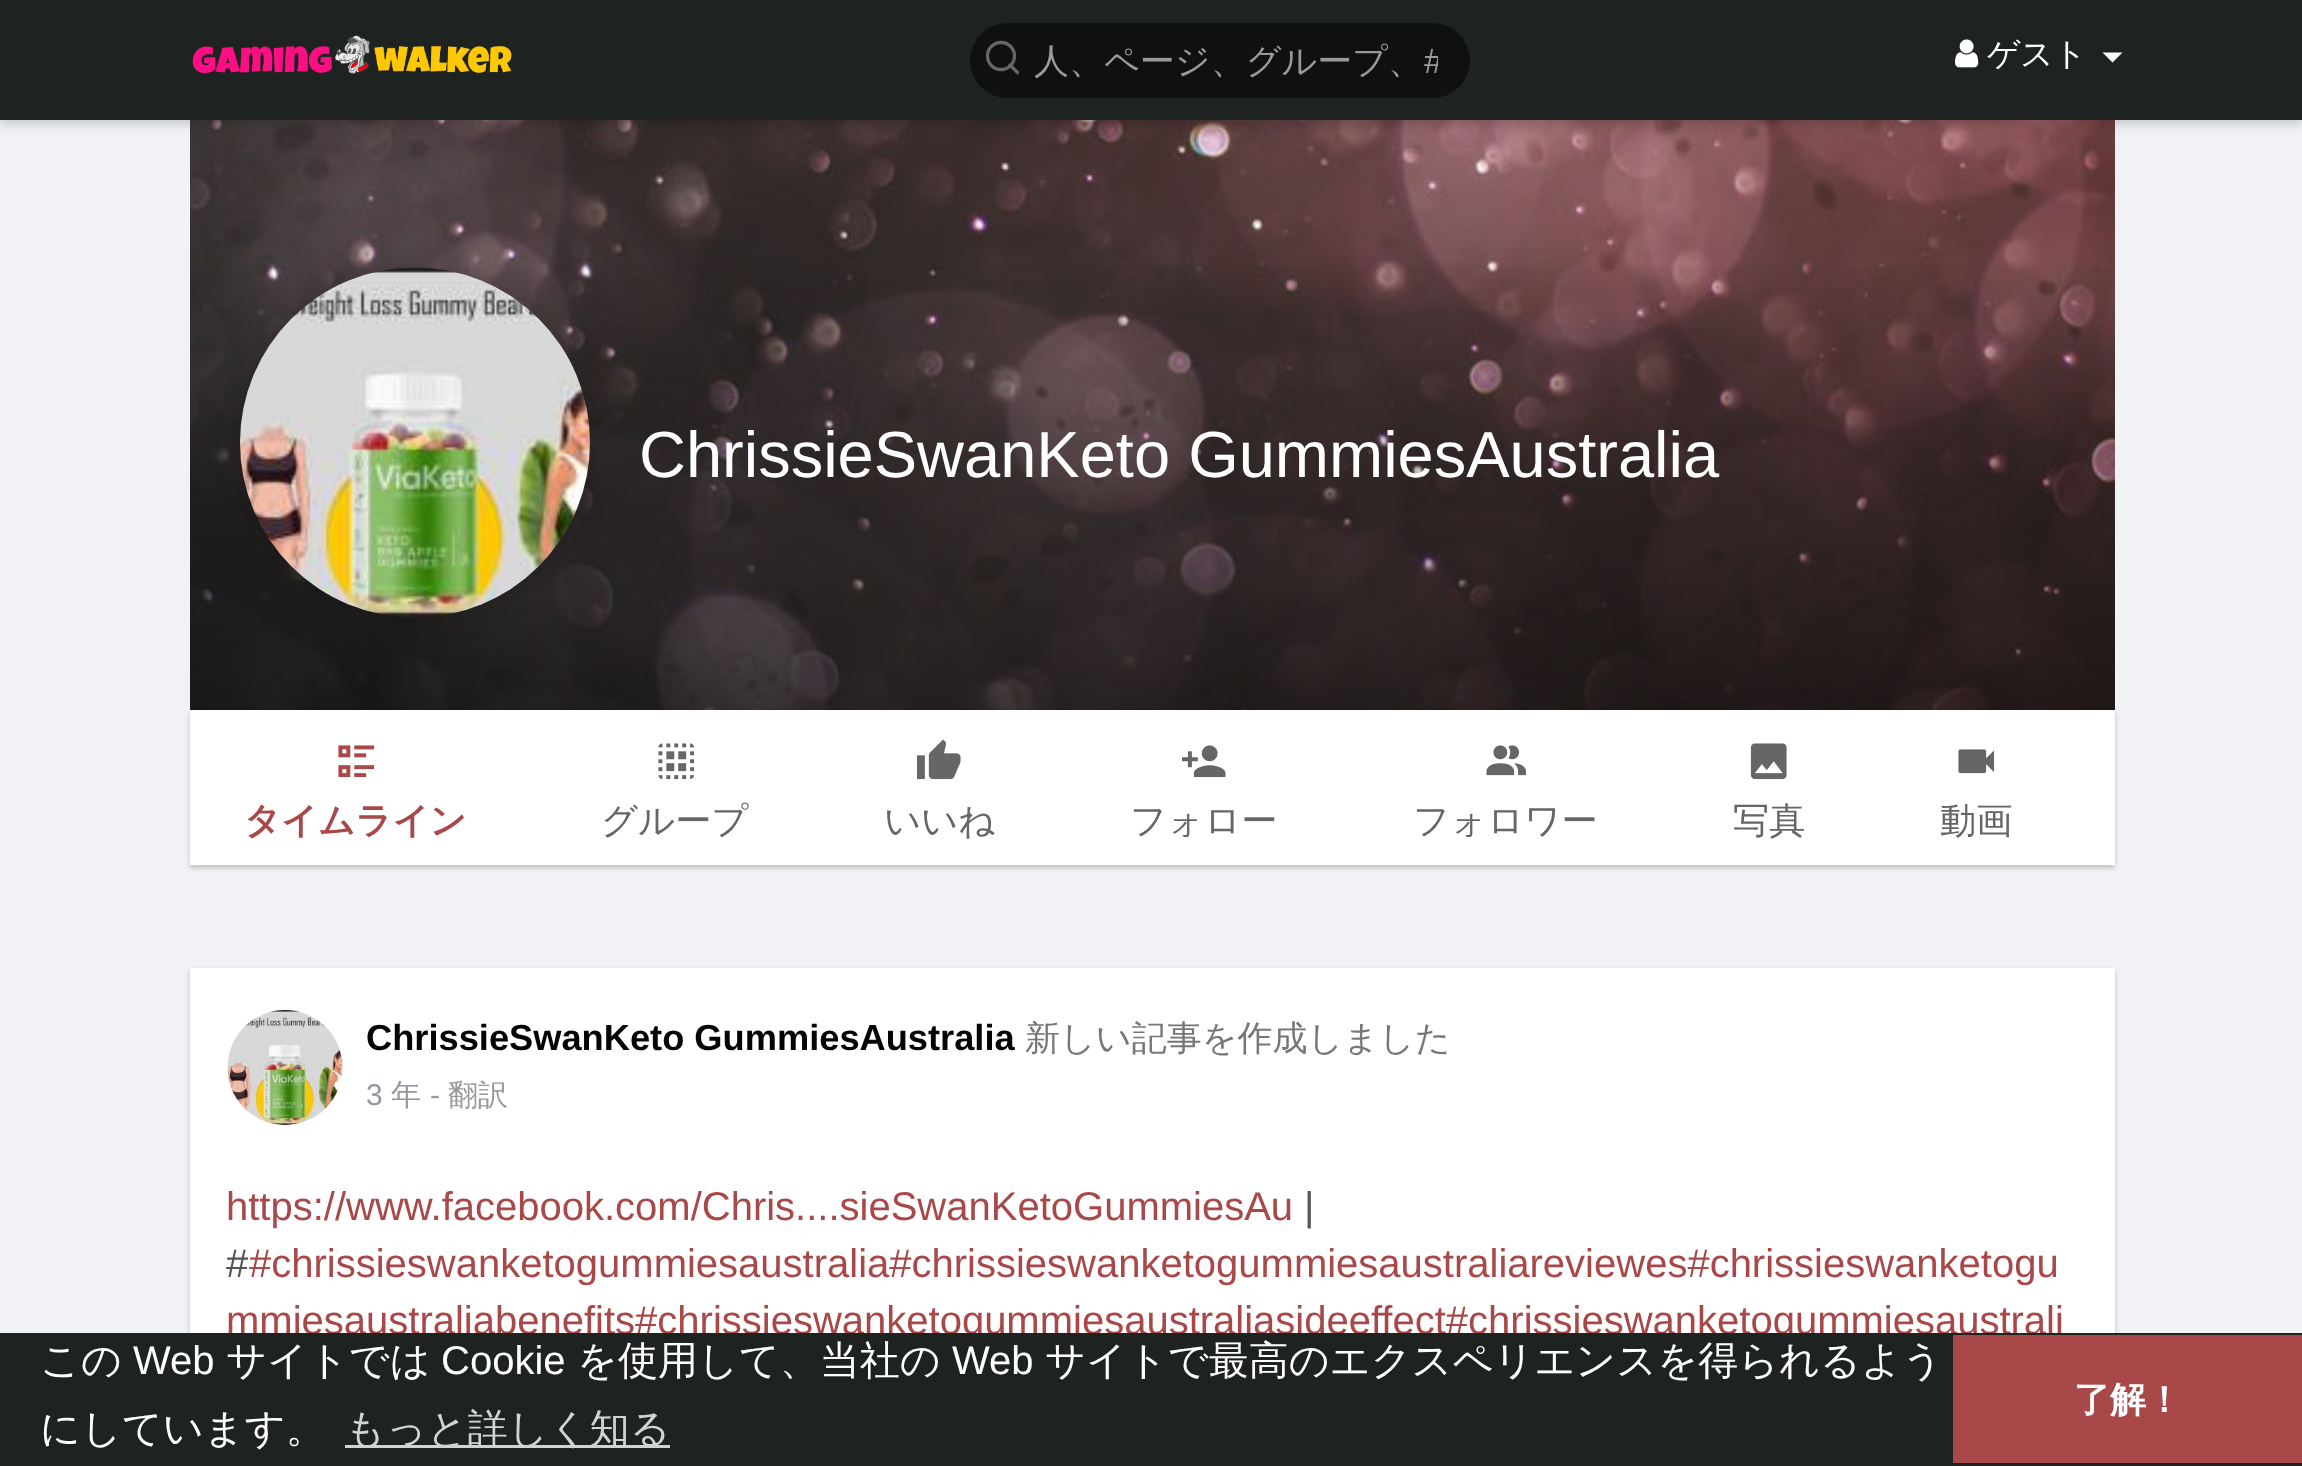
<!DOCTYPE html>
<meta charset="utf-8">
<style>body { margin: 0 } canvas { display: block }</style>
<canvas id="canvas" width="2302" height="1466"></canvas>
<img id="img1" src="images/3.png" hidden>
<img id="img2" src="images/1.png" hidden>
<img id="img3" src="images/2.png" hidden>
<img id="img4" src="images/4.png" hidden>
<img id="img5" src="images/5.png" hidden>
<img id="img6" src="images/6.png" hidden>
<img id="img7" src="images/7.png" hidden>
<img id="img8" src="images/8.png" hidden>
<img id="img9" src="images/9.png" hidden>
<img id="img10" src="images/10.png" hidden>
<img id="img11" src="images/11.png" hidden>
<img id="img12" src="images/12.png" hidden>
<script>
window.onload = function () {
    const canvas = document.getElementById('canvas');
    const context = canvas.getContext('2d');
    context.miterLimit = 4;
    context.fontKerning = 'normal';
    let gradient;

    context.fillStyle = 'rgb(240, 242, 245)';
    context.fillRect(0, 0, 2302, 1466);
    context.drawImage(document.getElementById('img1'), 190, 120, 1925, 590);
    context.fillStyle = 'rgba(0, 0, 0, 0.15)';
    context.filter = 'blur(5px)';
    context.beginPath();
    context.rect(0, 5, 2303, 120);
    context.fill();
    context.filter = 'none';
    context.fillStyle = 'rgb(30, 35, 33)';
    context.fillRect(0, 0, 2302, 120);
    context.drawImage(document.getElementById('img2'), 192, 35, 320, 39);
    context.fillStyle = 'rgb(15, 17, 16)';
    context.beginPath();
    context.roundRect(970, 23, 500, 75, 37.5);
    context.fill();
    context.beginPath();
    context.arc(1001, 56, 13.5, 0, 2 * Math.PI);
    context.strokeStyle = 'rgb(102, 102, 102)';
    context.lineWidth = 3.3;
    context.stroke();
    context.beginPath();
    context.moveTo(1017.5, 72.5);
    context.lineTo(1010, 65);
    context.lineCap = 'round';
    context.lineJoin = 'round';
    context.stroke();
    context.drawImage(document.getElementById('img3'), 1955, 39, 24, 29);
    context.fillStyle = 'rgb(255, 255, 255)';
    context.beginPath();
    context.moveTo(2102.5, 52.5);
    context.lineTo(2122.5, 52.5);
    context.lineTo(2112.5, 62.5);
    context.closePath();
    context.fill();
    gradient = context.createLinearGradient(1153, 242, 1153, 743);
    gradient.addColorStop(0, 'rgba(0, 0, 0, 0)');
    gradient.addColorStop(1, 'rgba(0, 0, 0, 0.45)');
    context.fillStyle = gradient;
    context.fillRect(190, 266, 1925, 444);
    context.fillStyle = 'rgba(0, 0, 0, 0.15)';
    context.filter = 'blur(12.5px)';
    context.beginPath();
    context.roundRect(240, 273, 350, 350, 175);
    context.fill();
    context.filter = 'none';
    context.drawImage(document.getElementById('img4'), 240, 267, 350, 350);
    context.fillStyle = 'rgba(0, 0, 0, 0.2)';
    context.filter = 'blur(2.5px)';
    context.beginPath();
    context.rect(190, 713, 1925, 155);
    context.fill();
    context.filter = 'none';
    context.fillStyle = 'rgb(255, 255, 255)';
    context.fillRect(190, 710, 1925, 155);
    context.drawImage(document.getElementById('img5'), 338, 745, 37, 33);
    context.drawImage(document.getElementById('img6'), 658, 743, 37, 37);
    context.drawImage(document.getElementById('img7'), 917, 739, 44, 41);
    context.drawImage(document.getElementById('img8'), 1182, 745, 44, 33);
    context.drawImage(document.getElementById('img9'), 1486, 745, 41, 31);
    context.drawImage(document.getElementById('img10'), 1750, 743, 37, 37);
    context.drawImage(document.getElementById('img11'), 1958, 749, 37, 25);
    context.fillStyle = 'rgba(0, 0, 0, 0.2)';
    context.filter = 'blur(2.5px)';
    context.beginPath();
    context.rect(190, 970, 1925, 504);
    context.fill();
    context.filter = 'none';
    context.fillStyle = 'rgb(255, 255, 255)';
    context.fillRect(190, 968, 1925, 365);
    context.drawImage(document.getElementById('img12'), 227, 1010, 116, 115);
    context.font = '500 35px WenQuanYi Zen Hei';
    context.fillStyle = 'rgb(153, 153, 153)';
    context.fillText('人、ページ、グループ、', 1034, 73);
    context.save();
    context.beginPath();
    context.rect(1035, 40, 403, 45);
    context.clip();
    context.font = '35px Liberation Sans';
    context.fillText('#', 1424, 73);
    context.restore();
    context.font = '500 32.5px WenQuanYi Zen Hei';
    context.fillStyle = 'rgb(255, 255, 255)';
    context.fillText('ゲスト', 1987, 65);
    context.font = '65px Liberation Sans';
    context.fillText('ChrissieSwanKeto GummiesAustralia', 639, 477);
    context.font = 'bold 36.25px WenQuanYi Zen Hei';
    context.fillStyle = 'rgb(168, 72, 73)';
    context.fillText('タイムライン', 244, 833);
    context.font = '500 36.25px WenQuanYi Zen Hei';
    context.fillStyle = 'rgb(102, 102, 102)';
    context.fillText('グループ', 601, 833);
    context.fillText('いいね', 884, 833);
    context.fillText('フォロー', 1130, 833);
    context.fillText('フォロワー', 1413, 833);
    context.fillText('写真', 1733, 833);
    context.fillText('動画', 1940, 833);
    context.font = 'bold 36.25px Liberation Sans';
    context.fillStyle = 'rgb(5, 5, 5)';
    context.fillText('ChrissieSwanKeto GummiesAustralia', 366, 1050);
    context.font = '500 35px WenQuanYi Zen Hei';
    context.fillStyle = 'rgb(119, 119, 119)';
    context.fillText('新しい記事を作成しました', 1025, 1050);
    context.font = '30px Liberation Sans';
    context.fillStyle = 'rgb(145, 151, 163)';
    context.fillText('3', 366, 1105);
    context.font = '500 30px WenQuanYi Zen Hei';
    context.fillText('年', 391, 1105);
    context.font = '30px Liberation Sans';
    context.fillStyle = 'rgb(153, 153, 153)';
    context.fillText('-', 430, 1105);
    context.font = '500 30px WenQuanYi Zen Hei';
    context.fillText('翻訳', 448, 1105);
    context.font = '40px Liberation Sans';
    context.fillStyle = 'rgb(168, 72, 73)';
    context.fillText('https://www.facebook.com/Chris....sieSwanKetoGummiesAu', 226, 1220);
    context.fillStyle = 'rgb(85, 85, 85)';
    context.fillText('|', 1304, 1220);
    context.fillText('#', 226, 1277);
    context.fillStyle = 'rgb(168, 72, 73)';
    context.fillText('#chrissieswanketogummiesaustralia#chrissieswanketogummiesaustraliareviewes#chrissieswanketogu', 249, 1277);
    context.fillText('mmiesaustraliabenefits#chrissieswanketogummiesaustraliasideeffect#chrissieswanketogummiesaustrali', 226, 1334);
    context.fillStyle = 'rgb(30, 35, 33)';
    context.fillRect(0, 1333, 2302, 133);
    context.font = '500 40px WenQuanYi Zen Hei';
    context.fillStyle = 'rgb(255, 255, 255)';
    context.fillText('この', 40, 1374);
    context.font = '40px Liberation Sans';
    context.fillText('Web', 133, 1374);
    context.font = '500 40px WenQuanYi Zen Hei';
    context.fillText('サイトでは', 226, 1374);
    context.font = '40px Liberation Sans';
    context.fillText('Cookie', 441, 1374);
    context.font = '500 40px WenQuanYi Zen Hei';
    context.fillText('を使用して、当社の', 577, 1374);
    context.font = '40px Liberation Sans';
    context.fillText('Web', 952, 1374);
    context.font = '500 40px WenQuanYi Zen Hei';
    context.fillText('サイトで最高のエクスペリエンスを得られるよう', 1045, 1374);
    context.fillText('にしています。', 40, 1442);
    context.fillStyle = 'rgb(210, 211, 211)';
    context.fillRect(345, 1445, 325, 3);
    context.fillText('もっと詳しく知る', 345, 1442);
    context.fillStyle = 'rgb(168, 72, 73)';
    context.fillRect(1953, 1335, 349, 128);
    context.font = 'bold 36px WenQuanYi Zen Hei';
    context.fillStyle = 'rgb(255, 255, 255)';
    context.fillText('了解！', 2074, 1412);
};
</script>
